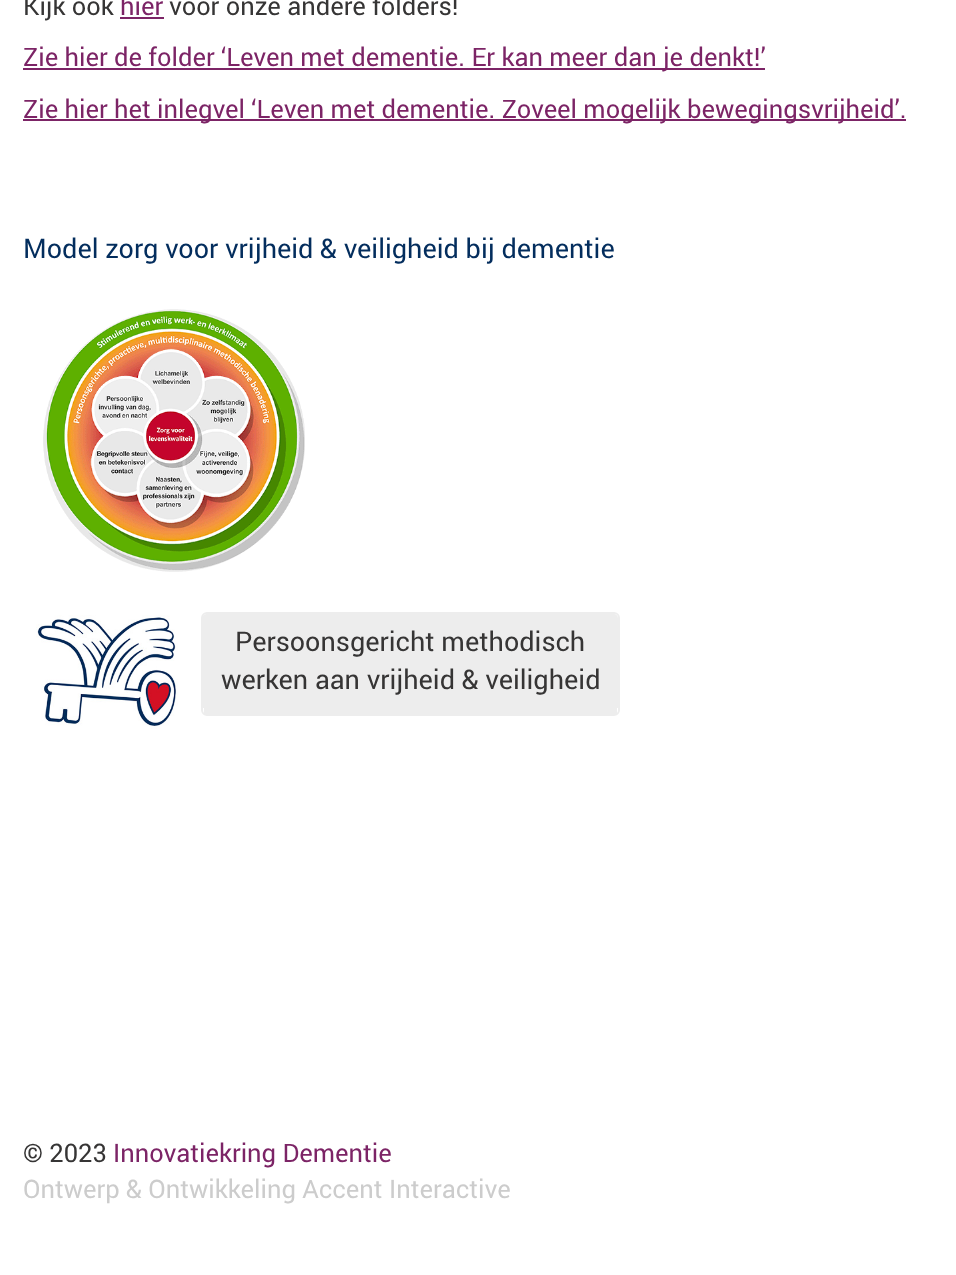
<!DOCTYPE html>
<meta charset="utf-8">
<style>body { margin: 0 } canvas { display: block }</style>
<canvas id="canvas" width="956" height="1275"></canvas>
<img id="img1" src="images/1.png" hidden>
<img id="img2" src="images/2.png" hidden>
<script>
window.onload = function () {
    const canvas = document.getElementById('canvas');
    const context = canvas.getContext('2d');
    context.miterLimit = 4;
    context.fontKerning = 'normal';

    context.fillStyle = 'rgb(255, 255, 255)';
    context.fillRect(0, 0, 956, 1275);
    context.fillStyle = 'rgb(124, 36, 102)';
    context.fillRect(120, 17, 44, 2);
    context.fillRect(23, 68, 742, 2);
    context.fillRect(23, 119, 883, 2);
    context.drawImage(document.getElementById('img1'), 43, 309, 262, 263);
    context.drawImage(document.getElementById('img2'), 36, 615, 142, 114);
    context.fillStyle = 'rgb(237, 237, 237)';
    context.beginPath();
    context.moveTo(207, 614);
    context.lineTo(614, 614);
    context.bezierCurveTo(616, 614, 618, 616, 618, 618);
    context.lineTo(618, 708);
    context.lineTo(202, 708);
    context.lineTo(202, 618);
    context.bezierCurveTo(202, 616, 205, 614, 207, 614);
    context.closePath();
    context.fill();
    context.beginPath();
    context.roundRect(202, 613, 417, 102, 5);
    context.strokeStyle = 'rgb(237, 237, 237)';
    context.lineWidth = 2;
    context.stroke();
    context.fillRect(204, 708, 413, 6);
    context.font = '25.5px roboto';
    context.fillStyle = 'rgb(54, 53, 53)';
    context.fillText('Kijk ook', 23, 15);
    context.fillStyle = 'rgb(124, 36, 102)';
    context.fillText('hier', 120, 15);
    context.fillStyle = 'rgb(54, 53, 53)';
    context.fillText('voor onze andere folders!', 169, 15);
    context.fillStyle = 'rgb(124, 36, 102)';
    context.fillText('Zie hier de folder ‘Leven met dementie. Er kan meer dan je denkt!’', 23, 66);
    context.fillText('Zie hier het inlegvel ‘Leven met dementie. Zoveel mogelijk bewegingsvrijheid’.', 23, 118);
    context.font = '27px roboto';
    context.fillStyle = 'rgb(3, 45, 93)';
    context.fillText('Model zorg voor vrijheid & veiligheid bij dementie', 23, 258);
    context.fillStyle = 'rgb(54, 53, 53)';
    context.fillText('Persoonsgericht methodisch', 235, 651);
    context.fillText('werken aan vrijheid & veiligheid', 221, 689);
    context.font = '25.5px roboto';
    context.fillText('© 2023', 23, 1162);
    context.fillStyle = 'rgb(124, 36, 102)';
    context.fillText('Innovatiekring Dementie', 113, 1162);
    context.fillStyle = 'rgb(204, 204, 204)';
    context.fillText('Ontwerp & Ontwikkeling Accent Interactive', 23, 1198);
};
</script>
